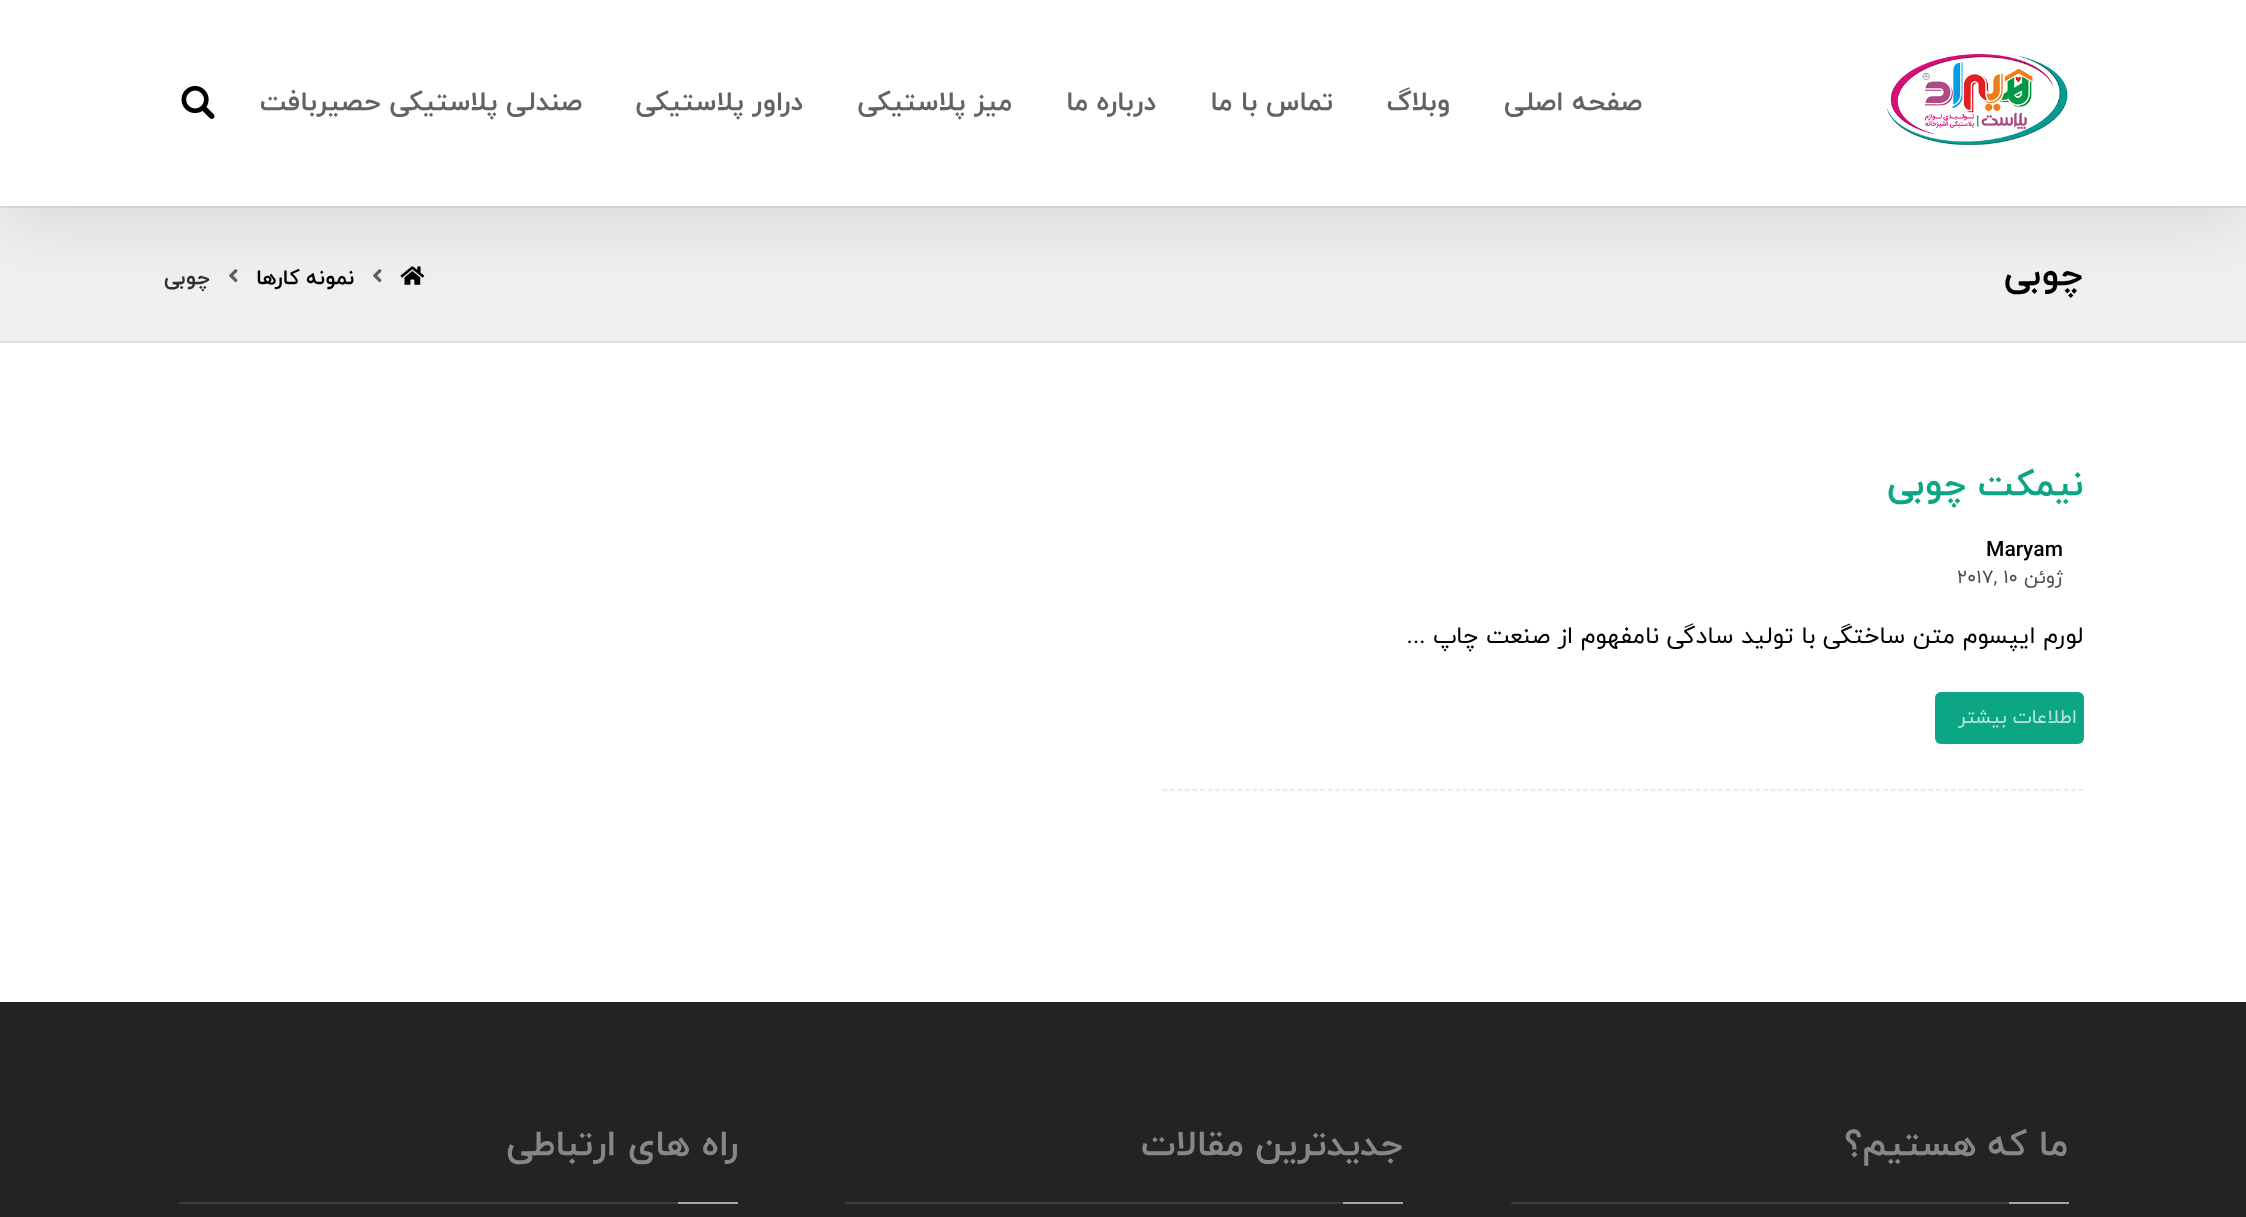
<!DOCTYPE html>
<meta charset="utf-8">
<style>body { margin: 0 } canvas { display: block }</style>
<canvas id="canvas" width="2246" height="1217"></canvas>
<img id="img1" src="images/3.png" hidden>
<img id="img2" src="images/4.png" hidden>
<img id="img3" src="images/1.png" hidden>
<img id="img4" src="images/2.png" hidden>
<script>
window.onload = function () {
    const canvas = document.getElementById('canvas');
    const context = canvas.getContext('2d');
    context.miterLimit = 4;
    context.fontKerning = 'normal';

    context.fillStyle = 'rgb(255, 255, 255)';
    context.fillRect(0, 0, 2246, 1217);
    context.fillStyle = 'rgb(240, 240, 240)';
    context.fillRect(0, 208, 2246, 133);
    context.fillStyle = 'rgb(223, 223, 223)';
    context.fillRect(0, 206, 2246, 2);
    context.drawImage(document.getElementById('img1'), 400, 266, 25, 19);
    context.drawImage(document.getElementById('img2'), 373, 269, 9, 14);
    context.drawImage(document.getElementById('img2'), 229, 269, 9, 14);
    context.save();
    context.beginPath();
    context.moveTo(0, 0);
    context.lineTo(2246, 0);
    context.lineTo(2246, 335);
    context.lineTo(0, 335);
    context.closePath();
    context.moveTo(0, 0);
    context.lineTo(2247, 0);
    context.lineTo(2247, 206);
    context.lineTo(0, 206);
    context.closePath();
    context.clip('evenodd');
    context.fillStyle = 'rgba(0, 0, 0, 0.1)';
    context.filter = 'blur(37.5px)';
    context.beginPath();
    context.rect(0, 15, 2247, 206);
    context.fill();
    context.filter = 'none';
    context.restore();
    context.drawImage(document.getElementById('img3'), 1886, 53, 182, 92);
    context.drawImage(document.getElementById('img4'), 181, 85, 34, 34);
    context.fillRect(0, 341, 2246, 2);
    context.beginPath();
    context.moveTo(1162.5, 790);
    context.lineTo(2083.5, 790);
    context.strokeStyle = 'rgb(229, 229, 229)';
    context.lineWidth = 1.5;
    context.setLineDash([4.5, 3.01]);
    context.stroke();
    context.fillStyle = 'rgb(12, 166, 132)';
    context.beginPath();
    context.roundRect(1935, 692, 149, 52, 6);
    context.fill();
    context.fillStyle = 'rgb(35, 35, 35)';
    context.fillRect(0, 1002, 2246, 215);
    context.fillStyle = 'rgb(61, 61, 61)';
    context.fillRect(1511, 1202, 498, 2);
    context.fillStyle = 'rgb(166, 166, 166)';
    context.fillRect(2009, 1202, 60, 2);
    context.fillStyle = 'rgb(61, 61, 61)';
    context.fillRect(845, 1202, 498, 2);
    context.fillStyle = 'rgb(166, 166, 166)';
    context.fillRect(1343, 1202, 60, 2);
    context.fillStyle = 'rgb(61, 61, 61)';
    context.fillRect(179, 1202, 499, 2);
    context.fillStyle = 'rgb(166, 166, 166)';
    context.fillRect(678, 1202, 60, 2);
    context.direction = 'rtl';
    context.font = 'bold 27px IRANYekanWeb';
    context.fillStyle = 'rgb(99, 99, 99)';
    context.fillText('صفحه اصلی', 1642, 110);
    context.fillText('وبلاگ', 1450, 110);
    context.fillText('تماس با ما', 1333, 110);
    context.fillText('درباره ما', 1156, 110);
    context.fillText('میز پلاستیکی', 1012, 110);
    context.fillText('دراور پلاستیکی', 803, 110);
    context.fillText('صندلی پلاستیکی حصیربافت', 582, 110);
    context.font = 'bold 36px IRANYekanWeb';
    context.fillStyle = 'rgb(0, 0, 0)';
    context.fillText('چوبی', 2083, 285);
    context.font = 'bold 21px IRANYekanWeb';
    context.fillText('نمونه کارها', 354, 284);
    context.fillStyle = 'rgb(48, 48, 48)';
    context.fillText('چوبی', 210, 284);
    context.font = 'bold 36px IRANYekanWeb';
    context.fillStyle = 'rgb(12, 166, 132)';
    context.fillText('نیمکت چوبی', 2083, 495);
    context.direction = 'ltr';
    context.font = 'bold 21px IRANYekanWeb';
    context.fillStyle = 'rgb(0, 0, 0)';
    context.fillText('Maryam', 1986, 556);
    context.direction = 'rtl';
    context.font = '19px IRANYekanWeb';
    context.fillStyle = 'rgb(77, 77, 77)';
    context.fillText('ژوئن', 2063, 583);
    context.direction = 'ltr';
    context.fillText('۲۰۱۷, ۱۰', 1957, 583);
    context.direction = 'rtl';
    context.font = '24px IRANYekanWeb';
    context.fillStyle = 'rgb(0, 0, 0)';
    context.fillText('لورم ایپسوم متن ساختگی با تولید سادگی نامفهوم از صنعت چاپ ...', 2083, 643);
    context.font = '19.5px IRANYekanWeb';
    context.fillStyle = 'rgb(182, 228, 218)';
    context.fillText('اطلاعات بیشتر', 2077, 723);
    context.font = 'bold 36px IRANYekanWeb';
    context.fillStyle = 'rgb(135, 135, 135)';
    context.fillText('ما که هستیم؟', 2068, 1155);
    context.fillText('جدیدترین مقالات', 1403, 1155);
    context.fillText('راه های ارتباطی', 738, 1155);
};
</script>
